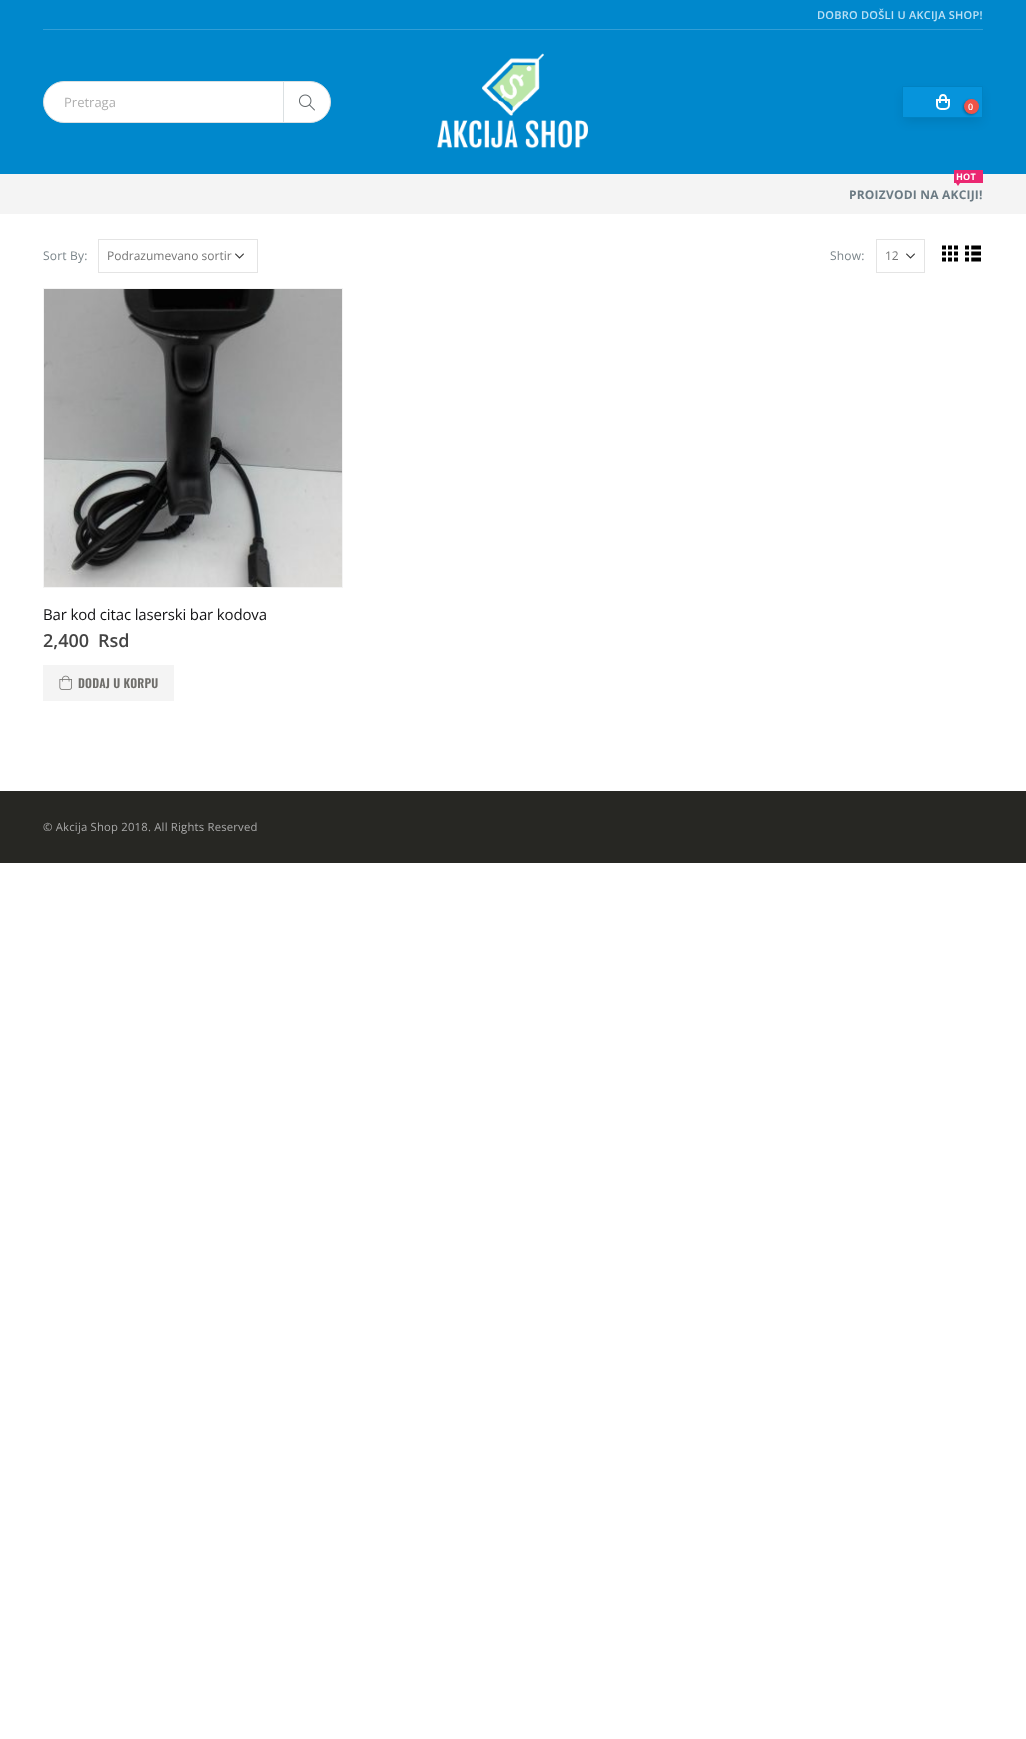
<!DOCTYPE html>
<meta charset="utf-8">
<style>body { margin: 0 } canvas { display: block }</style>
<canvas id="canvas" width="1026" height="1739"></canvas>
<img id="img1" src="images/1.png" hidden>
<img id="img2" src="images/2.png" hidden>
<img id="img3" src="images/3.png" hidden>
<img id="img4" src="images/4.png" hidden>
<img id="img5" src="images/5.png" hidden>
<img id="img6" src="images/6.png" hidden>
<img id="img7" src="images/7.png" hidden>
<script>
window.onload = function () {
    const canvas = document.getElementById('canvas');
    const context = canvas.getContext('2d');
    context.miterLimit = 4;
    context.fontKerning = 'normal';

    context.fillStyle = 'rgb(255, 255, 255)';
    context.fillRect(0, 0, 1026, 1739);
    context.fillStyle = 'rgb(0, 136, 204)';
    context.fillRect(0, 0, 1026, 174);
    context.fillStyle = 'rgb(50, 158, 213)';
    context.fillRect(43, 29, 940, 1);
    context.fillStyle = 'rgb(255, 255, 255)';
    context.beginPath();
    context.roundRect(43.5, 81.5, 287, 41, 20.5);
    context.fill();
    context.strokeStyle = 'rgb(219, 224, 226)';
    context.stroke();
    context.fillStyle = 'rgb(219, 224, 226)';
    context.fillRect(283, 82, 1, 40);
    context.drawImage(document.getElementById('img1'), 299, 94, 16, 17);
    context.drawImage(document.getElementById('img2'), 437, 53, 152, 96);
    context.fillStyle = 'rgba(0, 0, 0, 0.1)';
    context.filter = 'blur(5.5px)';
    context.beginPath();
    context.rect(904, 93, 77, 28);
    context.fill();
    context.filter = 'none';
    context.fillStyle = 'rgb(6, 148, 220)';
    context.beginPath();
    context.rect(902.5, 86.5, 80, 31);
    context.fill();
    context.strokeStyle = 'rgb(0, 130, 194)';
    context.stroke();
    context.beginPath();
    context.roundRect(937, 100, 12, 9, [0, 0, 4, 4]);
    context.strokeStyle = 'rgb(255, 255, 255)';
    context.lineWidth = 2;
    context.stroke();
    context.fillStyle = 'rgb(255, 255, 255)';
    context.beginPath();
    context.moveTo(943, 94);
    context.bezierCurveTo(948, 94, 947, 100, 947, 103);
    context.lineTo(939, 103);
    context.bezierCurveTo(939, 100, 938, 94, 943, 94);
    context.closePath();
    context.moveTo(943, 96);
    context.bezierCurveTo(946, 96, 945, 101, 945, 103);
    context.lineTo(941, 103);
    context.bezierCurveTo(941, 101, 940, 96, 943, 96);
    context.closePath();
    context.fill('evenodd');
    context.fillStyle = 'rgba(0, 0, 0, 0.3)';
    context.filter = 'blur(1px)';
    context.beginPath();
    context.roundRect(963, 100, 15, 15, 7.5);
    context.fill();
    context.filter = 'none';
    context.fillStyle = 'rgb(237, 83, 72)';
    context.beginPath();
    context.arc(971.5, 106.5, 7.5, 0, 2 * Math.PI);
    context.fill();
    context.fillStyle = 'rgb(244, 244, 244)';
    context.fillRect(0, 174, 1026, 40);
    context.fillStyle = 'rgb(235, 39, 113)';
    context.fillRect(954, 170, 29, 13);
    context.beginPath();
    context.moveTo(956, 183);
    context.lineTo(960, 183);
    context.lineTo(958, 186);
    context.closePath();
    context.fill();
    context.drawImage(document.getElementById('img3'), 235, 253, 9, 6);
    context.strokeStyle = 'rgb(228, 228, 228)';
    context.lineWidth = 1;
    context.strokeRect(98.5, 239.5, 159, 33);
    context.drawImage(document.getElementById('img3'), 906, 253, 9, 6);
    context.strokeRect(876.5, 239.5, 48, 33);
    context.drawImage(document.getElementById('img4'), 942, 245, 16, 17);
    context.drawImage(document.getElementById('img5'), 965, 245, 16, 17);
    context.strokeStyle = 'rgb(244, 244, 244)';
    context.strokeRect(43.5, 288.5, 299, 299);
    context.drawImage(document.getElementById('img6'), 44, 289, 298, 298);
    context.fillStyle = 'rgb(244, 244, 244)';
    context.fillRect(43, 665, 131, 36);
    context.drawImage(document.getElementById('img7'), 59, 675, 13, 15);
    context.fillStyle = 'rgb(39, 39, 35)';
    context.fillRect(0, 791, 1026, 72);
    context.letterSpacing = '0.25px';
    context.font = '600 11px Open Sans';
    context.fillStyle = 'rgb(189, 225, 245)';
    context.fillText('DOBRO DOŠLI U AKCIJA SHOP!', 817, 19);
    context.letterSpacing = '0px';
    context.font = '13px Open Sans';
    context.fillStyle = 'rgb(175, 175, 175)';
    context.fillText('Pretraga', 64, 107);
    context.letterSpacing = '0.2px';
    context.font = '600 9px Open Sans';
    context.fillStyle = 'rgb(255, 255, 255)';
    context.fillText('0', 968, 110);
    context.font = 'bold 9px Open Sans';
    context.fillText('HOT', 956, 180);
    context.font = 'bold 12px Open Sans';
    context.fillStyle = 'rgb(107, 122, 131)';
    context.fillText('PROIZVODI NA AKCIJI!', 849, 199);
    context.font = '12px Open Sans';
    context.fillStyle = 'rgb(123, 133, 138)';
    context.fillText('Sort By:', 43, 260);
    context.letterSpacing = '0px';
    context.fillStyle = 'rgb(119, 119, 119)';
    context.fillText('Podrazumevano sortir', 107, 260);
    context.letterSpacing = '0.2px';
    context.fillStyle = 'rgb(123, 133, 138)';
    context.fillText('Show:', 830, 260);
    context.letterSpacing = '0px';
    context.fillStyle = 'rgb(119, 119, 119)';
    context.fillText('12', 885, 260);
    context.letterSpacing = '-0.15px';
    context.font = '15px Open Sans';
    context.fillStyle = 'rgb(18, 18, 20)';
    context.fillText('Bar kod citac laserski bar kodova', 43, 620);
    context.letterSpacing = '0px';
    context.font = '600 18px Open Sans';
    context.fillStyle = 'rgb(68, 68, 68)';
    context.fillText('2,400', 43, 647);
    context.fillText('Rsd', 98, 647);
    context.letterSpacing = '0.2px';
    context.font = '600 12px Oswald';
    context.fillStyle = 'rgb(111, 110, 107)';
    context.fillText('DODAJ U KORPU', 78, 688);
    context.font = '11.3px Open Sans';
    context.fillStyle = 'rgb(168, 168, 168)';
    context.fillText('© Akcija Shop 2018. All Rights Reserved', 43, 831);
};
</script>
